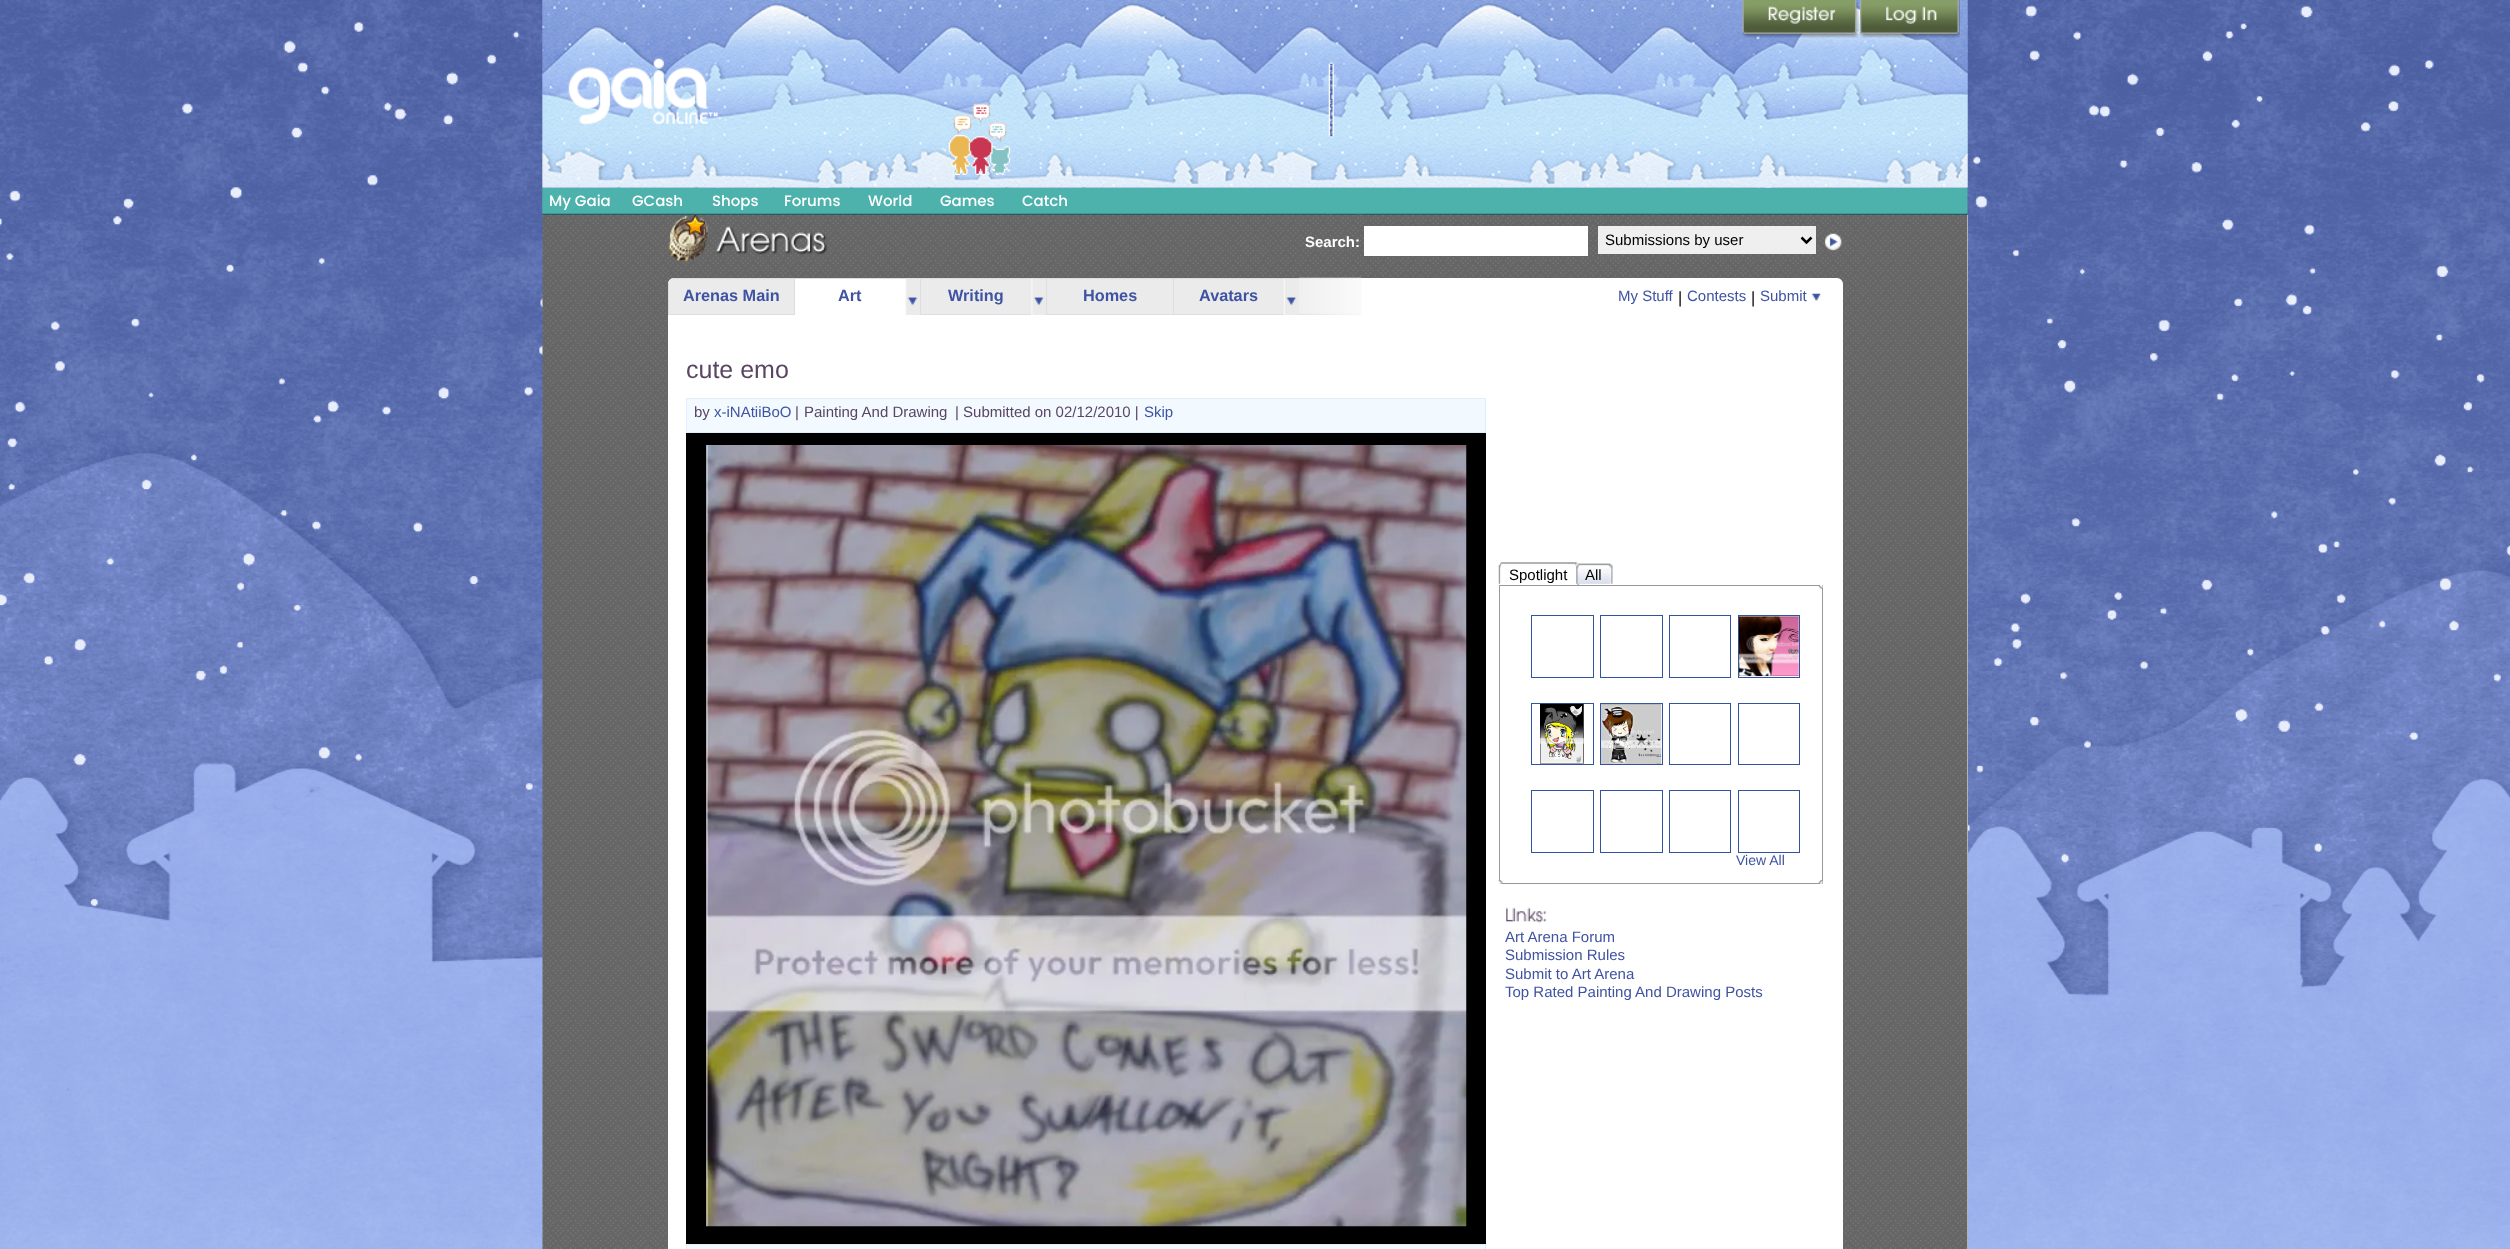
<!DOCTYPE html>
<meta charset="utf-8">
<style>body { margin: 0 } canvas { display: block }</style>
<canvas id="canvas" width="2510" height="1249"></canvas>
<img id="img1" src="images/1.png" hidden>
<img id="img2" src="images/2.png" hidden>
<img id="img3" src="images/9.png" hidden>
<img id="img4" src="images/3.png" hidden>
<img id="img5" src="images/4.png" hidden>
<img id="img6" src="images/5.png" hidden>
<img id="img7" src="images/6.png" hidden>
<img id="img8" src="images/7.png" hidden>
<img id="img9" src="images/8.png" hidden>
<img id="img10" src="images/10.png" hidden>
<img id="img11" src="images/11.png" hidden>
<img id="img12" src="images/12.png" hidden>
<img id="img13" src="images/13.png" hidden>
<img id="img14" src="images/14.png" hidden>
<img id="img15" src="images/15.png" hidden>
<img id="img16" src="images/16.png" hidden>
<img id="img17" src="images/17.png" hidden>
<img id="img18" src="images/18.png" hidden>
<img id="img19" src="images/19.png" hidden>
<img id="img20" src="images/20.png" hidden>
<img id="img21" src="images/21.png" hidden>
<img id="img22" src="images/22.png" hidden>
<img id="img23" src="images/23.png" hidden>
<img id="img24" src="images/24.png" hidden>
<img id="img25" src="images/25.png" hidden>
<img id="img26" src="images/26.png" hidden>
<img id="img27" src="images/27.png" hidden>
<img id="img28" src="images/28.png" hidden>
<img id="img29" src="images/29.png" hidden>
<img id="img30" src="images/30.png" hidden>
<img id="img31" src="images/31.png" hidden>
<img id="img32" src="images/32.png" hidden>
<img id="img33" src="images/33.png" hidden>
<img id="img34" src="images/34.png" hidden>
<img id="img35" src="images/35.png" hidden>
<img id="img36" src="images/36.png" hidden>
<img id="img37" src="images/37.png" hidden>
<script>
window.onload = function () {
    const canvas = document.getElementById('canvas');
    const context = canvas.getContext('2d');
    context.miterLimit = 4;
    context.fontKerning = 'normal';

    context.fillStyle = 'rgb(255, 255, 255)';
    context.fillRect(0, 0, 2510, 1249);
    context.drawImage(document.getElementById('img1'), 0, 0, 2510, 1249);
    context.drawImage(document.getElementById('img2'), 542, 0, 1426, 188);
    context.drawImage(document.getElementById('img3'), 542, 187, 1426, 28);
    context.drawImage(document.getElementById('img4'), 542, 0, 1426, 188);
    context.drawImage(document.getElementById('img5'), 1742, 0, 117, 38);
    context.drawImage(document.getElementById('img6'), 1860, 0, 100, 38);
    context.drawImage(document.getElementById('img7'), 568, 58, 150, 67);
    context.drawImage(document.getElementById('img8'), 948, 103, 63, 72);
    context.drawImage(document.getElementById('img9'), 1328, 62, 6, 76);
    context.drawImage(document.getElementById('img10'), 617, 187, 3, 1);
    context.drawImage(document.getElementById('img11'), 695, 187, 3, 1);
    context.drawImage(document.getElementById('img12'), 772, 187, 3, 1);
    context.drawImage(document.getElementById('img13'), 850, 187, 3, 1);
    context.drawImage(document.getElementById('img14'), 927, 187, 3, 1);
    context.drawImage(document.getElementById('img15'), 1005, 187, 3, 1);
    context.drawImage(document.getElementById('img16'), 1082, 187, 3, 1);
    context.drawImage(document.getElementById('img17'), 542, 188, 1, 26);
    context.fillRect(1967, 215, 1, 1034);
    context.drawImage(document.getElementById('img18'), 542, 215, 1426, 1034);
    context.drawImage(document.getElementById('img19'), 668, 215, 160, 47);
    context.fillRect(1364, 226, 224, 30);
    context.fillStyle = 'rgb(239, 239, 239)';
    context.fillRect(1598, 226, 218, 28);
    context.beginPath();
    context.moveTo(1801.5, 237.5);
    context.lineTo(1806.5, 242.5);
    context.lineTo(1811.5, 237.5);
    context.strokeStyle = 'rgb(0, 0, 0)';
    context.lineWidth = 2.5;
    context.stroke();
    context.drawImage(document.getElementById('img20'), 1824, 233, 18, 18);
    context.fillStyle = 'rgb(255, 255, 255)';
    context.beginPath();
    context.roundRect(668, 278, 1175, 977, 6);
    context.fill();
    context.fillStyle = 'rgb(235, 235, 235)';
    context.beginPath();
    context.roundRect(668, 278, 127, 37, [6, 0, 0, 0]);
    context.fill();
    context.fillStyle = 'rgb(220, 222, 227)';
    context.beginPath();
    context.moveTo(674, 278);
    context.lineTo(671, 279);
    context.lineTo(794, 279);
    context.lineTo(794, 314);
    context.lineTo(669, 314);
    context.lineTo(669, 281);
    context.bezierCurveTo(668, 282, 668, 283, 668, 284);
    context.lineTo(668, 315);
    context.lineTo(795, 315);
    context.lineTo(795, 278);
    context.closePath();
    context.fill();
    context.fillRect(794, 278, 127, 1);
    context.drawImage(document.getElementById('img21'), 905, 278, 15, 37);
    context.fillStyle = 'rgb(235, 235, 235)';
    context.fillRect(921, 279, 111, 35);
    context.strokeStyle = 'rgb(220, 222, 227)';
    context.lineWidth = 1;
    context.strokeRect(920.5, 278.5, 127, 36);
    context.drawImage(document.getElementById('img22'), 1031, 278, 15, 37);
    context.beginPath();
    context.rect(1046.5, 278.5, 127, 36);
    context.fill();
    context.stroke();
    context.fillRect(1174, 279, 125, 35);
    context.fillStyle = 'rgb(220, 222, 227)';
    context.fillRect(1173, 278, 126, 1);
    context.fillRect(1173, 314, 126, 1);
    context.drawImage(document.getElementById('img23'), 1283, 278, 16, 37);
    context.drawImage(document.getElementById('img24'), 1298, 277, 64, 38);
    context.fillStyle = 'rgb(243, 250, 255)';
    context.beginPath();
    context.rect(686.5, 398.5, 799, 34);
    context.fill();
    context.strokeStyle = 'rgb(221, 238, 255)';
    context.stroke();
    context.fillStyle = 'rgb(0, 0, 0)';
    context.fillRect(686, 433, 800, 811);
    context.drawImage(document.getElementById('img25'), 706, 445, 761, 782);
    context.fillStyle = 'rgb(243, 250, 255)';
    context.beginPath();
    context.rect(686.5, 1244.5, 799, 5);
    context.fill();
    context.stroke();
    context.drawImage(document.getElementById('img26'), 1811, 293, 10, 9);
    context.drawImage(document.getElementById('img27'), 1498, 562, 79, 22);
    context.drawImage(document.getElementById('img28'), 1501, 562, 78, 23);
    context.drawImage(document.getElementById('img29'), 1576, 563, 34, 21);
    context.drawImage(document.getElementById('img30'), 1578, 563, 35, 21);
    context.strokeStyle = 'rgb(153, 153, 153)';
    context.strokeRect(1499.5, 585.5, 323, 298);
    context.drawImage(document.getElementById('img31'), 1818, 585, 5, 4);
    context.strokeStyle = 'rgb(50, 83, 162)';
    context.strokeRect(1531.5, 615.5, 62, 62);
    context.strokeRect(1600.5, 615.5, 62, 62);
    context.strokeRect(1669.5, 615.5, 61, 62);
    context.strokeRect(1738.5, 615.5, 61, 62);
    context.drawImage(document.getElementById('img32'), 1738, 616, 61, 61);
    context.strokeRect(1531.5, 703.5, 62, 61);
    context.drawImage(document.getElementById('img33'), 1540, 703, 44, 61);
    context.strokeRect(1600.5, 703.5, 62, 61);
    context.drawImage(document.getElementById('img34'), 1601, 703, 61, 61);
    context.strokeRect(1669.5, 703.5, 61, 61);
    context.strokeRect(1738.5, 703.5, 61, 61);
    context.strokeRect(1531.5, 790.5, 62, 62);
    context.strokeRect(1600.5, 790.5, 62, 62);
    context.strokeRect(1669.5, 790.5, 61, 62);
    context.strokeRect(1738.5, 790.5, 61, 62);
    context.drawImage(document.getElementById('img35'), 1498, 880, 5, 4);
    context.drawImage(document.getElementById('img36'), 1818, 880, 5, 4);
    context.drawImage(document.getElementById('img37'), 1506, 907, 41, 16);
    context.font = '500 15px Poppins';
    context.fillStyle = 'rgb(255, 255, 255)';
    context.fillText('My Gaia', 549, 206);
    context.fillText('GCash', 632, 206);
    context.fillText('Shops', 712, 206);
    context.fillText('Forums', 784, 206);
    context.fillText('World', 868, 206);
    context.fillText('Games', 940, 206);
    context.fillText('Catch', 1022, 206);
    context.font = 'bold 15px Liberation Sans';
    context.fillText('Search:', 1305, 247);
    context.font = '15px Liberation Sans';
    context.fillStyle = 'rgb(0, 0, 0)';
    context.fillText('Submissions by user', 1605, 245);
    context.font = 'bold 16.25px Liberation Sans';
    context.fillStyle = 'rgb(62, 83, 162)';
    context.fillText('Arenas Main', 683, 301);
    context.fillText('Art', 838, 301);
    context.fillText('Writing', 948, 301);
    context.fillText('Homes', 1083, 301);
    context.fillText('Avatars', 1199, 301);
    context.font = '25px Liberation Sans';
    context.fillStyle = 'rgb(90, 69, 100)';
    context.fillText('cute emo', 686, 378);
    context.font = '15px Liberation Sans';
    context.fillText('by', 694, 417);
    context.fillStyle = 'rgb(62, 83, 162)';
    context.fillText('x-iNAtiiBoO', 714, 417);
    context.fillStyle = 'rgb(90, 69, 100)';
    context.fillText('|', 795, 417);
    context.fillText('Painting And Drawing', 804, 417);
    context.fillText('| Submitted on 02/12/2010 |', 955, 417);
    context.fillStyle = 'rgb(62, 83, 162)';
    context.fillText('Skip', 1144, 417);
    context.fillText('My Stuff', 1618, 301);
    context.font = '16.25px Liberation Sans';
    context.fillStyle = 'rgb(0, 0, 0)';
    context.fillText('|', 1678, 303);
    context.font = '15px Liberation Sans';
    context.fillStyle = 'rgb(62, 83, 162)';
    context.fillText('Contests', 1687, 301);
    context.font = '16.25px Liberation Sans';
    context.fillStyle = 'rgb(0, 0, 0)';
    context.fillText('|', 1751, 303);
    context.font = '15px Liberation Sans';
    context.fillStyle = 'rgb(62, 83, 162)';
    context.fillText('Submit', 1760, 301);
    context.fillStyle = 'rgb(0, 0, 0)';
    context.fillText('Spotlight', 1509, 580);
    context.fillText('All', 1585, 580);
    context.font = '14px Liberation Sans';
    context.fillStyle = 'rgb(62, 83, 162)';
    context.fillText('View All', 1736, 865);
    context.font = '15px Liberation Sans';
    context.fillText('Art Arena Forum', 1505, 942);
    context.fillText('Submission Rules', 1505, 960);
    context.fillText('Submit to Art Arena', 1505, 979);
    context.fillText('Top Rated Painting And Drawing Posts', 1505, 997);
};
</script>
